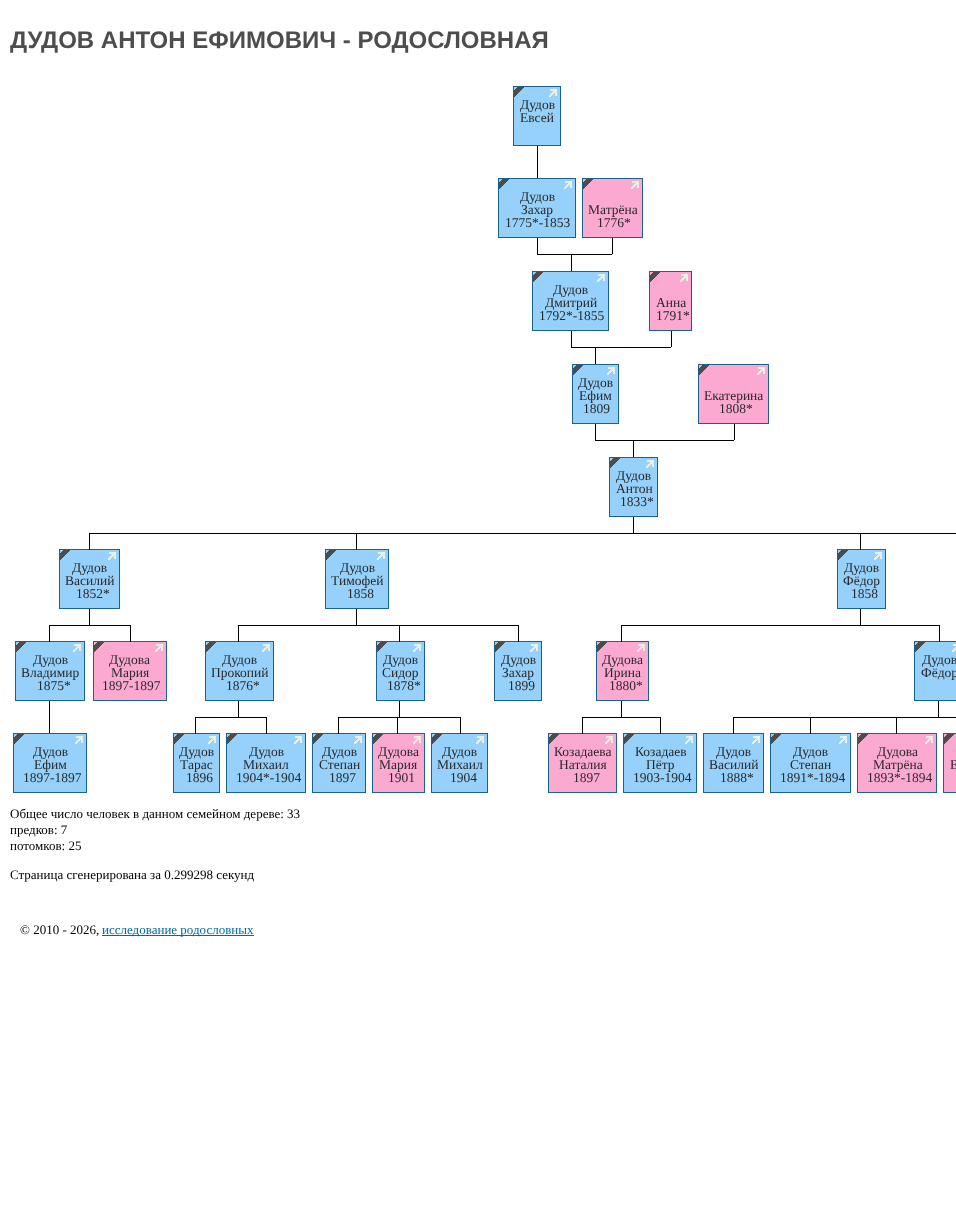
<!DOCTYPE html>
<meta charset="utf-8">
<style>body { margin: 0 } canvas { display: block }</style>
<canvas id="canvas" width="956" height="1232"></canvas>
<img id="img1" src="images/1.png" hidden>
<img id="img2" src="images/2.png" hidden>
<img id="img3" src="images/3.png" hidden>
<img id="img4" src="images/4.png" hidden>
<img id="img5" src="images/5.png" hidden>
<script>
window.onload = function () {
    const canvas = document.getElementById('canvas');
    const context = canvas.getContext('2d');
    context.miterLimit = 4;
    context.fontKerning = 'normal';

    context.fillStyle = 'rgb(255, 255, 255)';
    context.fillRect(0, 0, 956, 1232);
    context.fillStyle = 'rgb(150, 209, 251)';
    context.fillRect(514, 87, 46, 58);
    context.fillStyle = 'rgb(24, 98, 140)';
    context.fillRect(513, 86, 48, 1);
    context.fillRect(560, 86, 1, 60);
    context.fillRect(513, 145, 48, 1);
    context.fillRect(513, 86, 1, 60);
    context.drawImage(document.getElementById('img1'), 514, 87, 10, 10);
    context.drawImage(document.getElementById('img2'), 549, 89, 8, 8);
    context.fillStyle = 'rgb(0, 0, 0)';
    context.fillRect(537, 146, 1, 32);
    context.fillStyle = 'rgb(150, 209, 251)';
    context.fillRect(499, 179, 76, 58);
    context.fillStyle = 'rgb(24, 98, 140)';
    context.fillRect(498, 178, 78, 1);
    context.fillRect(575, 178, 1, 60);
    context.fillRect(498, 237, 78, 1);
    context.fillRect(498, 178, 1, 60);
    context.drawImage(document.getElementById('img1'), 499, 179, 10, 10);
    context.drawImage(document.getElementById('img2'), 564, 181, 8, 8);
    context.fillStyle = 'rgb(0, 0, 0)';
    context.fillRect(537, 238, 1, 16);
    context.fillRect(537, 254, 75, 1);
    context.fillStyle = 'rgb(252, 169, 210)';
    context.fillRect(583, 179, 59, 58);
    context.fillStyle = 'rgb(24, 98, 140)';
    context.fillRect(582, 178, 61, 1);
    context.fillRect(642, 178, 1, 60);
    context.fillRect(582, 237, 61, 1);
    context.fillRect(582, 178, 1, 60);
    context.drawImage(document.getElementById('img3'), 583, 179, 10, 10);
    context.drawImage(document.getElementById('img4'), 631, 181, 8, 8);
    context.fillStyle = 'rgb(0, 0, 0)';
    context.fillRect(612, 238, 1, 16);
    context.fillRect(571, 255, 1, 16);
    context.fillStyle = 'rgb(150, 209, 251)';
    context.fillRect(533, 272, 75, 58);
    context.fillStyle = 'rgb(24, 98, 140)';
    context.fillRect(532, 271, 77, 1);
    context.fillRect(608, 271, 1, 60);
    context.fillRect(532, 330, 77, 1);
    context.fillRect(532, 271, 1, 60);
    context.drawImage(document.getElementById('img1'), 533, 272, 10, 10);
    context.drawImage(document.getElementById('img2'), 597, 274, 8, 8);
    context.fillStyle = 'rgb(0, 0, 0)';
    context.fillRect(571, 331, 1, 16);
    context.fillRect(571, 347, 100, 1);
    context.fillStyle = 'rgb(252, 169, 210)';
    context.fillRect(650, 272, 41, 58);
    context.fillStyle = 'rgb(24, 98, 140)';
    context.fillRect(649, 271, 43, 1);
    context.fillRect(691, 271, 1, 60);
    context.fillRect(649, 330, 43, 1);
    context.fillRect(649, 271, 1, 60);
    context.drawImage(document.getElementById('img3'), 650, 272, 10, 10);
    context.drawImage(document.getElementById('img4'), 680, 274, 8, 8);
    context.fillStyle = 'rgb(0, 0, 0)';
    context.fillRect(671, 331, 1, 16);
    context.fillRect(595, 348, 1, 16);
    context.fillStyle = 'rgb(150, 209, 251)';
    context.fillRect(573, 365, 45, 58);
    context.fillStyle = 'rgb(24, 98, 140)';
    context.fillRect(572, 364, 47, 1);
    context.fillRect(618, 364, 1, 60);
    context.fillRect(572, 423, 47, 1);
    context.fillRect(572, 364, 1, 60);
    context.drawImage(document.getElementById('img1'), 573, 365, 10, 10);
    context.drawImage(document.getElementById('img2'), 607, 367, 8, 8);
    context.fillStyle = 'rgb(0, 0, 0)';
    context.fillRect(595, 424, 1, 16);
    context.fillRect(595, 440, 139, 1);
    context.fillStyle = 'rgb(252, 169, 210)';
    context.fillRect(699, 365, 69, 58);
    context.fillStyle = 'rgb(24, 98, 140)';
    context.fillRect(698, 364, 71, 1);
    context.fillRect(768, 364, 1, 60);
    context.fillRect(698, 423, 71, 1);
    context.fillRect(698, 364, 1, 60);
    context.drawImage(document.getElementById('img3'), 699, 365, 10, 10);
    context.drawImage(document.getElementById('img4'), 757, 367, 8, 8);
    context.fillStyle = 'rgb(0, 0, 0)';
    context.fillRect(734, 424, 1, 16);
    context.fillRect(633, 441, 1, 16);
    context.fillStyle = 'rgb(150, 209, 251)';
    context.fillRect(610, 458, 47, 58);
    context.fillStyle = 'rgb(24, 98, 140)';
    context.fillRect(609, 457, 49, 1);
    context.fillRect(657, 457, 1, 60);
    context.fillRect(609, 516, 49, 1);
    context.fillRect(609, 457, 1, 60);
    context.drawImage(document.getElementById('img1'), 610, 458, 10, 10);
    context.drawImage(document.getElementById('img2'), 646, 460, 8, 8);
    context.fillStyle = 'rgb(0, 0, 0)';
    context.fillRect(633, 517, 1, 16);
    context.fillRect(89, 533, 81, 1);
    context.fillStyle = 'rgb(24, 98, 140)';
    context.fillRect(59, 549, 61, 1);
    context.fillStyle = 'rgb(0, 0, 0)';
    context.fillRect(89, 533, 1, 17);
    context.fillStyle = 'rgb(150, 209, 251)';
    context.fillRect(60, 550, 59, 58);
    context.fillStyle = 'rgb(24, 98, 140)';
    context.fillRect(119, 549, 1, 60);
    context.fillRect(59, 608, 61, 1);
    context.fillRect(59, 549, 1, 60);
    context.drawImage(document.getElementById('img1'), 60, 550, 10, 10);
    context.drawImage(document.getElementById('img2'), 108, 552, 8, 8);
    context.fillStyle = 'rgb(0, 0, 0)';
    context.fillRect(89, 609, 1, 16);
    context.fillRect(356, 533, 189, 1);
    context.fillStyle = 'rgb(24, 98, 140)';
    context.fillRect(325, 549, 64, 1);
    context.fillStyle = 'rgb(0, 0, 0)';
    context.fillRect(356, 533, 1, 17);
    context.fillRect(170, 533, 187, 1);
    context.fillStyle = 'rgb(150, 209, 251)';
    context.fillRect(326, 550, 62, 58);
    context.fillStyle = 'rgb(24, 98, 140)';
    context.fillRect(388, 549, 1, 60);
    context.fillRect(325, 608, 64, 1);
    context.fillRect(325, 549, 1, 60);
    context.drawImage(document.getElementById('img1'), 326, 550, 10, 10);
    context.drawImage(document.getElementById('img2'), 377, 552, 8, 8);
    context.fillStyle = 'rgb(0, 0, 0)';
    context.fillRect(356, 609, 1, 16);
    context.fillRect(860, 533, 96, 1);
    context.fillStyle = 'rgb(24, 98, 140)';
    context.fillRect(837, 549, 49, 1);
    context.fillStyle = 'rgb(0, 0, 0)';
    context.fillRect(860, 533, 1, 17);
    context.fillRect(545, 533, 316, 1);
    context.fillStyle = 'rgb(150, 209, 251)';
    context.fillRect(838, 550, 47, 58);
    context.fillStyle = 'rgb(24, 98, 140)';
    context.fillRect(885, 549, 1, 60);
    context.fillRect(837, 608, 49, 1);
    context.fillRect(837, 549, 1, 60);
    context.drawImage(document.getElementById('img1'), 838, 550, 10, 10);
    context.drawImage(document.getElementById('img2'), 874, 552, 8, 8);
    context.fillStyle = 'rgb(0, 0, 0)';
    context.fillRect(860, 609, 1, 16);
    context.fillRect(49, 625, 82, 1);
    context.fillStyle = 'rgb(24, 98, 140)';
    context.fillRect(15, 641, 70, 1);
    context.fillStyle = 'rgb(0, 0, 0)';
    context.fillRect(49, 625, 1, 17);
    context.fillStyle = 'rgb(150, 209, 251)';
    context.fillRect(16, 642, 68, 58);
    context.fillStyle = 'rgb(24, 98, 140)';
    context.fillRect(84, 641, 1, 60);
    context.fillRect(15, 700, 70, 1);
    context.fillRect(15, 641, 1, 60);
    context.drawImage(document.getElementById('img1'), 16, 642, 10, 10);
    context.drawImage(document.getElementById('img2'), 73, 644, 8, 8);
    context.fillStyle = 'rgb(0, 0, 0)';
    context.fillRect(49, 701, 1, 32);
    context.fillStyle = 'rgb(24, 98, 140)';
    context.fillRect(93, 641, 74, 1);
    context.fillStyle = 'rgb(0, 0, 0)';
    context.fillRect(130, 625, 1, 17);
    context.fillStyle = 'rgb(252, 169, 210)';
    context.fillRect(94, 642, 72, 58);
    context.fillStyle = 'rgb(24, 98, 140)';
    context.fillRect(166, 641, 1, 60);
    context.fillRect(93, 700, 74, 1);
    context.fillRect(93, 641, 1, 60);
    context.drawImage(document.getElementById('img3'), 94, 642, 10, 10);
    context.drawImage(document.getElementById('img4'), 155, 644, 8, 8);
    context.fillStyle = 'rgb(0, 0, 0)';
    context.fillRect(238, 625, 71, 1);
    context.fillStyle = 'rgb(24, 98, 140)';
    context.fillRect(205, 641, 69, 1);
    context.fillStyle = 'rgb(0, 0, 0)';
    context.fillRect(238, 625, 1, 17);
    context.fillStyle = 'rgb(150, 209, 251)';
    context.fillRect(206, 642, 67, 58);
    context.fillStyle = 'rgb(24, 98, 140)';
    context.fillRect(273, 641, 1, 60);
    context.fillRect(205, 700, 69, 1);
    context.fillRect(205, 641, 1, 60);
    context.drawImage(document.getElementById('img1'), 206, 642, 10, 10);
    context.drawImage(document.getElementById('img2'), 262, 644, 8, 8);
    context.fillStyle = 'rgb(0, 0, 0)';
    context.fillRect(238, 701, 1, 16);
    context.fillRect(399, 625, 120, 1);
    context.fillStyle = 'rgb(24, 98, 140)';
    context.fillRect(376, 641, 49, 1);
    context.fillStyle = 'rgb(0, 0, 0)';
    context.fillRect(399, 625, 1, 17);
    context.fillRect(309, 625, 91, 1);
    context.fillStyle = 'rgb(150, 209, 251)';
    context.fillRect(377, 642, 47, 58);
    context.fillStyle = 'rgb(24, 98, 140)';
    context.fillRect(424, 641, 1, 60);
    context.fillRect(376, 700, 49, 1);
    context.fillRect(376, 641, 1, 60);
    context.drawImage(document.getElementById('img1'), 377, 642, 10, 10);
    context.drawImage(document.getElementById('img2'), 413, 644, 8, 8);
    context.fillStyle = 'rgb(0, 0, 0)';
    context.fillRect(399, 701, 1, 16);
    context.fillStyle = 'rgb(24, 98, 140)';
    context.fillRect(494, 641, 48, 1);
    context.fillStyle = 'rgb(0, 0, 0)';
    context.fillRect(518, 625, 1, 17);
    context.fillStyle = 'rgb(150, 209, 251)';
    context.fillRect(495, 642, 46, 58);
    context.fillStyle = 'rgb(24, 98, 140)';
    context.fillRect(541, 641, 1, 60);
    context.fillRect(494, 700, 48, 1);
    context.fillRect(494, 641, 1, 60);
    context.drawImage(document.getElementById('img1'), 495, 642, 10, 10);
    context.drawImage(document.getElementById('img2'), 530, 644, 8, 8);
    context.fillStyle = 'rgb(0, 0, 0)';
    context.fillRect(621, 625, 319, 1);
    context.fillStyle = 'rgb(24, 98, 140)';
    context.fillRect(596, 641, 53, 1);
    context.fillStyle = 'rgb(0, 0, 0)';
    context.fillRect(621, 625, 1, 17);
    context.fillStyle = 'rgb(252, 169, 210)';
    context.fillRect(597, 642, 51, 58);
    context.fillStyle = 'rgb(24, 98, 140)';
    context.fillRect(648, 641, 1, 60);
    context.fillRect(596, 700, 53, 1);
    context.fillRect(596, 641, 1, 60);
    context.drawImage(document.getElementById('img3'), 597, 642, 10, 10);
    context.drawImage(document.getElementById('img4'), 637, 644, 8, 8);
    context.fillStyle = 'rgb(0, 0, 0)';
    context.fillRect(621, 701, 1, 16);
    context.fillStyle = 'rgb(24, 98, 140)';
    context.fillRect(914, 641, 42, 1);
    context.fillStyle = 'rgb(0, 0, 0)';
    context.fillRect(939, 625, 1, 17);
    context.fillStyle = 'rgb(150, 209, 251)';
    context.fillRect(915, 642, 41, 58);
    context.fillStyle = 'rgb(24, 98, 140)';
    context.fillRect(914, 700, 42, 1);
    context.fillRect(914, 641, 1, 60);
    context.drawImage(document.getElementById('img1'), 915, 642, 10, 10);
    context.drawImage(document.getElementById('img5'), 952, 644, 4, 8);
    context.fillStyle = 'rgb(0, 0, 0)';
    context.fillRect(938, 701, 1, 16);
    context.fillStyle = 'rgb(150, 209, 251)';
    context.fillRect(14, 734, 72, 58);
    context.fillStyle = 'rgb(24, 98, 140)';
    context.fillRect(13, 733, 74, 1);
    context.fillRect(86, 733, 1, 60);
    context.fillRect(13, 792, 74, 1);
    context.fillRect(13, 733, 1, 60);
    context.drawImage(document.getElementById('img1'), 14, 734, 10, 10);
    context.drawImage(document.getElementById('img2'), 75, 736, 8, 8);
    context.fillStyle = 'rgb(0, 0, 0)';
    context.fillRect(195, 717, 72, 1);
    context.fillStyle = 'rgb(24, 98, 140)';
    context.fillRect(173, 733, 47, 1);
    context.fillStyle = 'rgb(0, 0, 0)';
    context.fillRect(195, 717, 1, 17);
    context.fillStyle = 'rgb(150, 209, 251)';
    context.fillRect(174, 734, 45, 58);
    context.fillStyle = 'rgb(24, 98, 140)';
    context.fillRect(219, 733, 1, 60);
    context.fillRect(173, 792, 47, 1);
    context.fillRect(173, 733, 1, 60);
    context.drawImage(document.getElementById('img1'), 174, 734, 10, 10);
    context.drawImage(document.getElementById('img2'), 208, 736, 8, 8);
    context.fillRect(226, 733, 80, 1);
    context.fillStyle = 'rgb(0, 0, 0)';
    context.fillRect(266, 717, 1, 17);
    context.fillStyle = 'rgb(150, 209, 251)';
    context.fillRect(227, 734, 78, 58);
    context.fillStyle = 'rgb(24, 98, 140)';
    context.fillRect(305, 733, 1, 60);
    context.fillRect(226, 792, 80, 1);
    context.fillRect(226, 733, 1, 60);
    context.drawImage(document.getElementById('img1'), 227, 734, 10, 10);
    context.drawImage(document.getElementById('img2'), 294, 736, 8, 8);
    context.fillStyle = 'rgb(0, 0, 0)';
    context.fillRect(338, 717, 31, 1);
    context.fillStyle = 'rgb(24, 98, 140)';
    context.fillRect(312, 733, 54, 1);
    context.fillStyle = 'rgb(0, 0, 0)';
    context.fillRect(338, 717, 1, 17);
    context.fillStyle = 'rgb(150, 209, 251)';
    context.fillRect(313, 734, 52, 58);
    context.fillStyle = 'rgb(24, 98, 140)';
    context.fillRect(365, 733, 1, 60);
    context.fillRect(312, 792, 54, 1);
    context.fillRect(312, 733, 1, 60);
    context.drawImage(document.getElementById('img1'), 313, 734, 10, 10);
    context.drawImage(document.getElementById('img2'), 354, 736, 8, 8);
    context.fillStyle = 'rgb(0, 0, 0)';
    context.fillRect(397, 717, 64, 1);
    context.fillStyle = 'rgb(24, 98, 140)';
    context.fillRect(372, 733, 53, 1);
    context.fillStyle = 'rgb(0, 0, 0)';
    context.fillRect(397, 717, 1, 17);
    context.fillRect(369, 717, 29, 1);
    context.fillStyle = 'rgb(252, 169, 210)';
    context.fillRect(373, 734, 51, 58);
    context.fillStyle = 'rgb(24, 98, 140)';
    context.fillRect(424, 733, 1, 60);
    context.fillRect(372, 792, 53, 1);
    context.fillRect(372, 733, 1, 60);
    context.drawImage(document.getElementById('img3'), 373, 734, 10, 10);
    context.drawImage(document.getElementById('img4'), 413, 736, 8, 8);
    context.fillRect(431, 733, 57, 1);
    context.fillStyle = 'rgb(0, 0, 0)';
    context.fillRect(460, 717, 1, 17);
    context.fillStyle = 'rgb(150, 209, 251)';
    context.fillRect(432, 734, 55, 58);
    context.fillStyle = 'rgb(24, 98, 140)';
    context.fillRect(487, 733, 1, 60);
    context.fillRect(431, 792, 57, 1);
    context.fillRect(431, 733, 1, 60);
    context.drawImage(document.getElementById('img1'), 432, 734, 10, 10);
    context.drawImage(document.getElementById('img2'), 476, 736, 8, 8);
    context.fillStyle = 'rgb(0, 0, 0)';
    context.fillRect(582, 717, 79, 1);
    context.fillStyle = 'rgb(24, 98, 140)';
    context.fillRect(548, 733, 69, 1);
    context.fillStyle = 'rgb(0, 0, 0)';
    context.fillRect(582, 717, 1, 17);
    context.fillStyle = 'rgb(252, 169, 210)';
    context.fillRect(549, 734, 67, 58);
    context.fillStyle = 'rgb(24, 98, 140)';
    context.fillRect(616, 733, 1, 60);
    context.fillRect(548, 792, 69, 1);
    context.fillRect(548, 733, 1, 60);
    context.drawImage(document.getElementById('img3'), 549, 734, 10, 10);
    context.drawImage(document.getElementById('img4'), 605, 736, 8, 8);
    context.fillRect(623, 733, 74, 1);
    context.fillStyle = 'rgb(0, 0, 0)';
    context.fillRect(660, 717, 1, 17);
    context.fillStyle = 'rgb(150, 209, 251)';
    context.fillRect(624, 734, 72, 58);
    context.fillStyle = 'rgb(24, 98, 140)';
    context.fillRect(696, 733, 1, 60);
    context.fillRect(623, 792, 74, 1);
    context.fillRect(623, 733, 1, 60);
    context.drawImage(document.getElementById('img1'), 624, 734, 10, 10);
    context.drawImage(document.getElementById('img2'), 685, 736, 8, 8);
    context.fillStyle = 'rgb(0, 0, 0)';
    context.fillRect(733, 717, 34, 1);
    context.fillStyle = 'rgb(24, 98, 140)';
    context.fillRect(703, 733, 61, 1);
    context.fillStyle = 'rgb(0, 0, 0)';
    context.fillRect(733, 717, 1, 17);
    context.fillStyle = 'rgb(150, 209, 251)';
    context.fillRect(704, 734, 59, 58);
    context.fillStyle = 'rgb(24, 98, 140)';
    context.fillRect(763, 733, 1, 60);
    context.fillRect(703, 792, 61, 1);
    context.fillRect(703, 733, 1, 60);
    context.drawImage(document.getElementById('img2'), 752, 736, 8, 8);
    context.fillStyle = 'rgb(0, 0, 0)';
    context.fillRect(810, 717, 44, 1);
    context.fillStyle = 'rgb(24, 98, 140)';
    context.fillRect(770, 733, 81, 1);
    context.fillStyle = 'rgb(0, 0, 0)';
    context.fillRect(810, 717, 1, 17);
    context.fillRect(767, 717, 44, 1);
    context.fillStyle = 'rgb(150, 209, 251)';
    context.fillRect(771, 734, 79, 58);
    context.fillStyle = 'rgb(24, 98, 140)';
    context.fillRect(850, 733, 1, 60);
    context.fillRect(770, 792, 81, 1);
    context.fillRect(770, 733, 1, 60);
    context.drawImage(document.getElementById('img1'), 771, 734, 10, 10);
    context.drawImage(document.getElementById('img2'), 839, 736, 8, 8);
    context.fillStyle = 'rgb(0, 0, 0)';
    context.fillRect(896, 717, 60, 1);
    context.fillStyle = 'rgb(24, 98, 140)';
    context.fillRect(857, 733, 80, 1);
    context.fillStyle = 'rgb(0, 0, 0)';
    context.fillRect(896, 717, 1, 17);
    context.fillRect(854, 717, 43, 1);
    context.fillStyle = 'rgb(252, 169, 210)';
    context.fillRect(858, 734, 78, 58);
    context.fillStyle = 'rgb(24, 98, 140)';
    context.fillRect(936, 733, 1, 60);
    context.fillRect(857, 792, 80, 1);
    context.fillRect(857, 733, 1, 60);
    context.drawImage(document.getElementById('img3'), 858, 734, 10, 10);
    context.drawImage(document.getElementById('img4'), 925, 736, 8, 8);
    context.fillStyle = 'rgb(252, 169, 210)';
    context.fillRect(944, 734, 12, 58);
    context.fillStyle = 'rgb(24, 98, 140)';
    context.fillRect(943, 733, 13, 1);
    context.fillRect(943, 792, 13, 1);
    context.fillRect(943, 733, 1, 60);
    context.drawImage(document.getElementById('img3'), 944, 734, 10, 10);
    context.fillStyle = 'rgb(0, 106, 164)';
    context.fillRect(102, 935, 152, 1);
    context.font = 'bold 24px Liberation Sans';
    context.fillStyle = 'rgb(77, 77, 77)';
    context.fillText('ДУДОВ АНТОН ЕФИМОВИЧ - РОДОСЛОВНАЯ', 10, 48);
    context.font = '13.5px Liberation Serif';
    context.fillStyle = 'rgb(41, 41, 41)';
    context.fillText('Дудов', 520, 109);
    context.fillText('Евсей', 520, 122);
    context.fillText('Дудов', 520, 201);
    context.fillText('Захар', 521, 214);
    context.fillText('1775*-1853', 505, 227);
    context.fillText('Матрёна', 588, 214);
    context.fillText('1776*', 597, 227);
    context.fillText('Дудов', 553, 294);
    context.fillText('Дмитрий', 545, 307);
    context.fillText('1792*-1855', 539, 320);
    context.fillText('Анна', 656, 307);
    context.fillText('1791*', 656, 320);
    context.fillText('Дудов', 578, 387);
    context.fillText('Ефим', 579, 400);
    context.fillText('1809', 583, 413);
    context.fillText('Екатерина', 704, 400);
    context.fillText('1808*', 719, 413);
    context.fillText('Дудов', 616, 480);
    context.fillText('Антон', 616, 493);
    context.fillText('1833*', 620, 506);
    context.fillText('Дудов', 72, 572);
    context.fillText('Василий', 65, 585);
    context.fillText('1852*', 76, 598);
    context.fillText('Дудов', 340, 572);
    context.fillText('Тимофей', 331, 585);
    context.fillText('1858', 347, 598);
    context.fillText('Дудов', 844, 572);
    context.fillText('Фёдор', 843, 585);
    context.fillText('1858', 851, 598);
    context.fillText('Дудов', 33, 664);
    context.fillText('Владимир', 21, 677);
    context.fillText('1875*', 37, 690);
    context.fillText('Дудова', 109, 664);
    context.fillText('Мария', 111, 677);
    context.fillText('1897-1897', 102, 690);
    context.fillText('Дудов', 222, 664);
    context.fillText('Прокопий', 211, 677);
    context.fillText('1876*', 226, 690);
    context.fillText('Дудов', 383, 664);
    context.fillText('Сидор', 382, 677);
    context.fillText('1878*', 387, 690);
    context.fillText('Дудов', 501, 664);
    context.fillText('Захар', 502, 677);
    context.fillText('1899', 508, 690);
    context.fillText('Дудова', 602, 664);
    context.fillText('Ирина', 604, 677);
    context.fillText('1880*', 609, 690);
    context.fillText('Дудов', 922, 664);
    context.fillText('Фёдор', 921, 677);
    context.fillText('Дудов', 33, 756);
    context.fillText('Ефим', 34, 769);
    context.fillText('1897-1897', 23, 782);
    context.fillText('Дудов', 179, 756);
    context.fillText('Тарас', 180, 769);
    context.fillText('1896', 186, 782);
    context.fillText('Дудов', 249, 756);
    context.fillText('Михаил', 243, 769);
    context.fillText('1904*-1904', 236, 782);
    context.fillText('Дудов', 322, 756);
    context.fillText('Степан', 319, 769);
    context.fillText('1897', 329, 782);
    context.fillText('Дудова', 378, 756);
    context.fillText('Мария', 379, 769);
    context.fillText('1901', 388, 782);
    context.fillText('Дудов', 442, 756);
    context.fillText('Михаил', 437, 769);
    context.fillText('1904', 450, 782);
    context.fillText('Козадаева', 554, 756);
    context.fillText('Наталия', 559, 769);
    context.fillText('1897', 573, 782);
    context.fillText('Козадаев', 635, 756);
    context.fillText('Пётр', 646, 769);
    context.fillText('1903-1904', 633, 782);
    context.fillText('Дудов', 716, 756);
    context.fillText('Василий', 709, 769);
    context.fillText('1888*', 720, 782);
    context.fillText('Дудов', 793, 756);
    context.fillText('Степан', 790, 769);
    context.fillText('1891*-1894', 780, 782);
    context.fillText('Дудова', 877, 756);
    context.fillText('Матрёна', 873, 769);
    context.fillText('1893*-1894', 867, 782);
    context.fillText('Е', 950, 769);
    context.font = '13px Liberation Serif';
    context.fillStyle = 'rgb(0, 0, 0)';
    context.fillText('Общее число человек в данном семейном дереве: 33', 10, 818);
    context.fillText('предков: 7', 10, 834);
    context.fillText('потомков: 25', 10, 850);
    context.fillText('Страница сгенерирована за 0.299298 секунд', 10, 879);
    context.fillText('© 2010 - 2026,', 20, 934);
    context.fillStyle = 'rgb(0, 106, 164)';
    context.fillText('исследование родословных', 102, 934);
};
</script>
